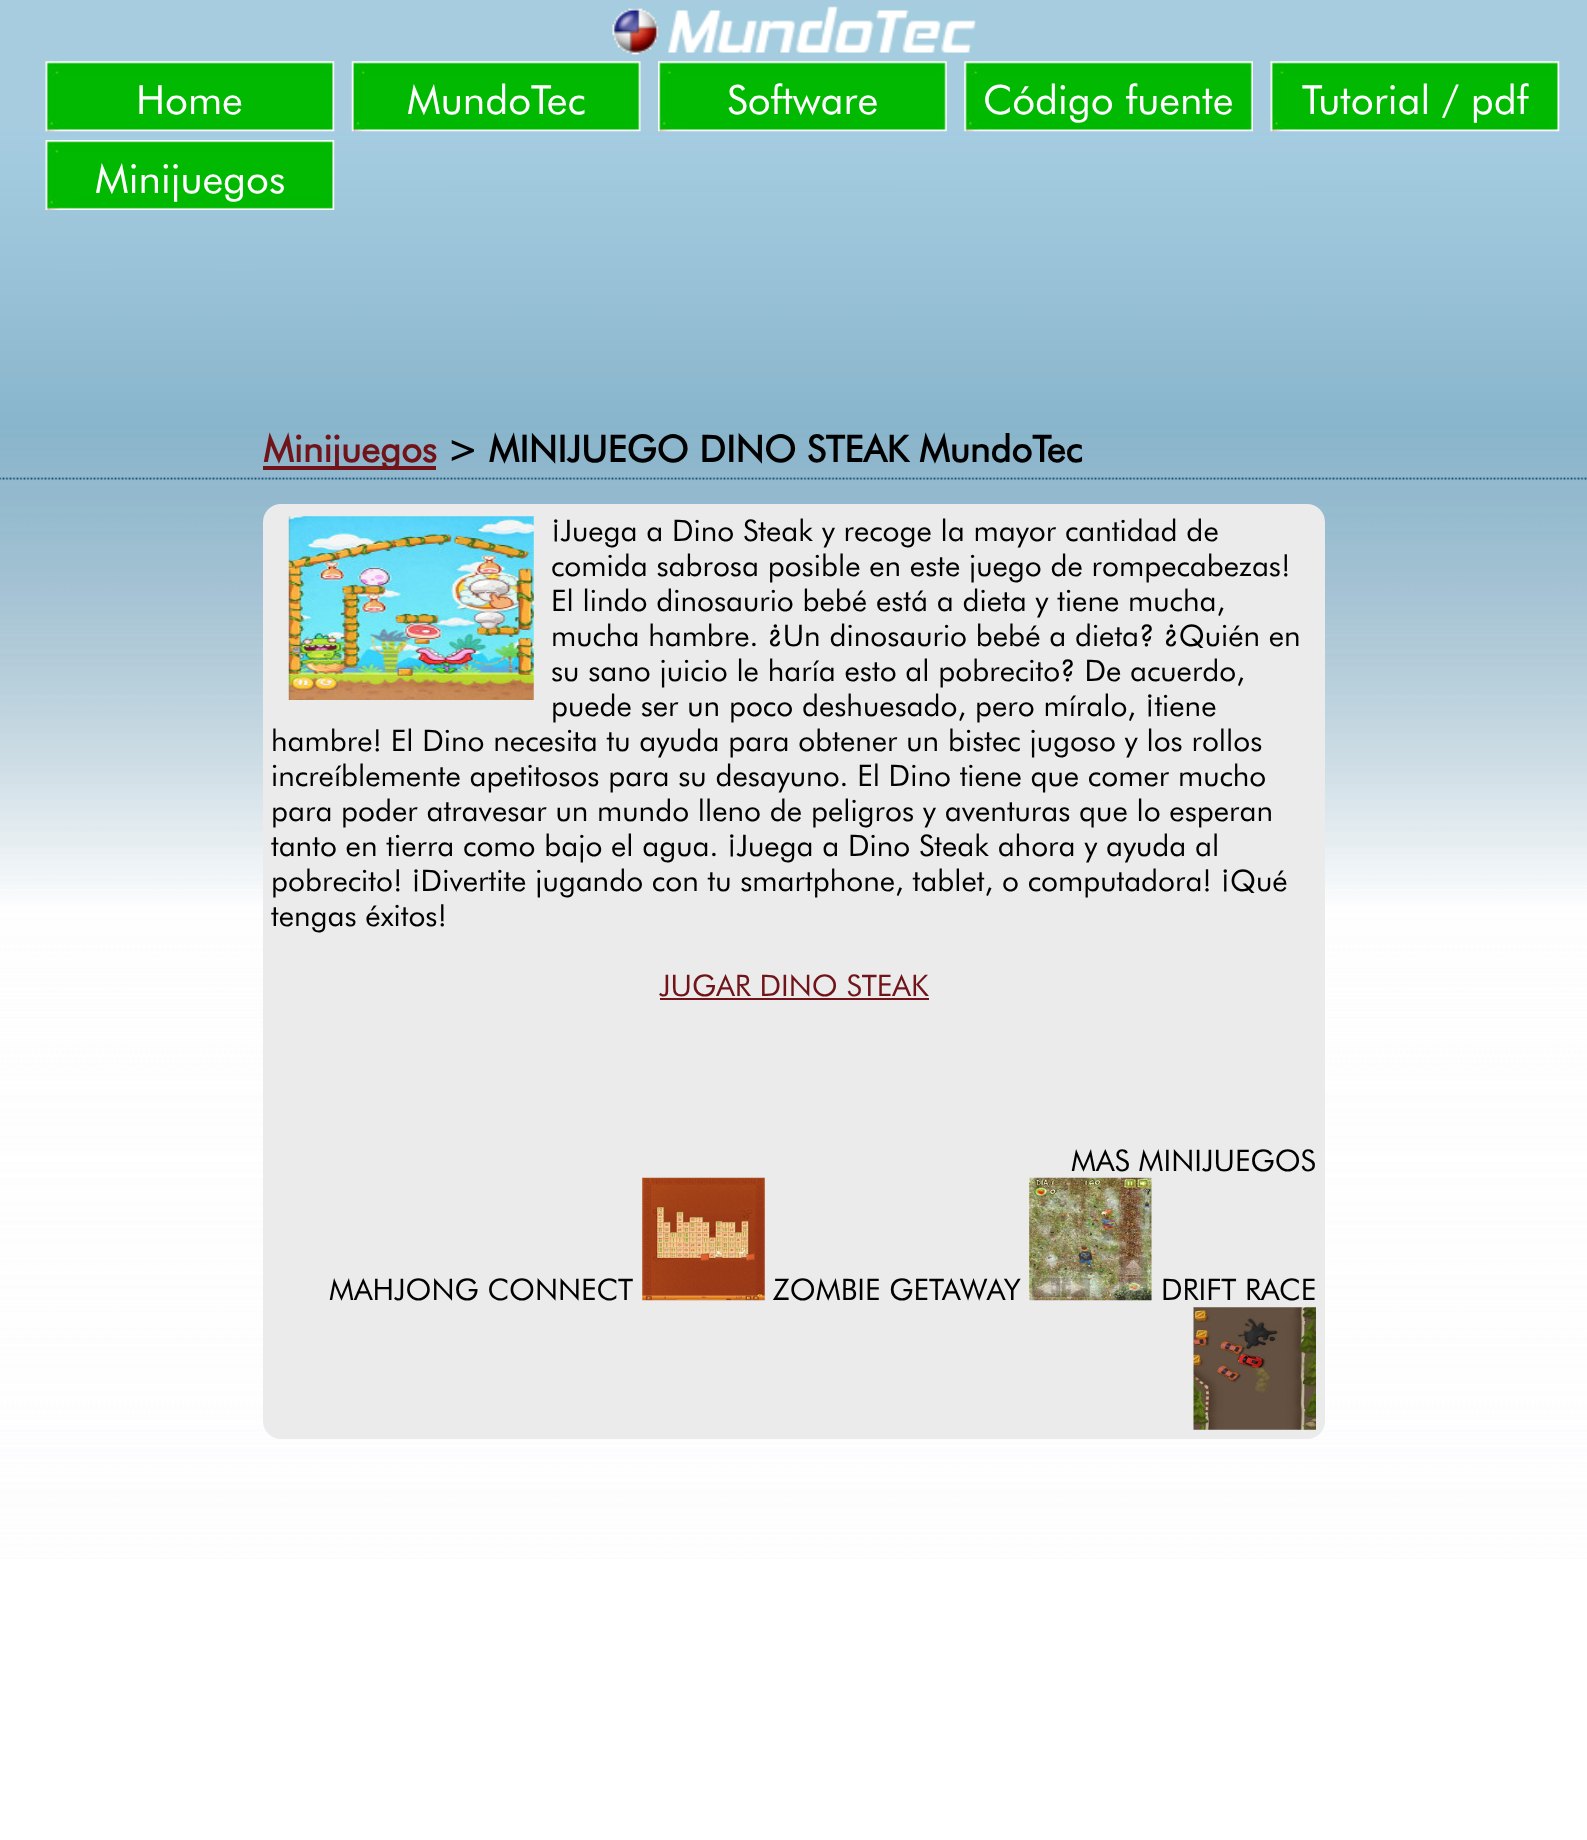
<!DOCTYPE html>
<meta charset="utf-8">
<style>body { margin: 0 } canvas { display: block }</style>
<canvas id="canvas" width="1587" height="1840"></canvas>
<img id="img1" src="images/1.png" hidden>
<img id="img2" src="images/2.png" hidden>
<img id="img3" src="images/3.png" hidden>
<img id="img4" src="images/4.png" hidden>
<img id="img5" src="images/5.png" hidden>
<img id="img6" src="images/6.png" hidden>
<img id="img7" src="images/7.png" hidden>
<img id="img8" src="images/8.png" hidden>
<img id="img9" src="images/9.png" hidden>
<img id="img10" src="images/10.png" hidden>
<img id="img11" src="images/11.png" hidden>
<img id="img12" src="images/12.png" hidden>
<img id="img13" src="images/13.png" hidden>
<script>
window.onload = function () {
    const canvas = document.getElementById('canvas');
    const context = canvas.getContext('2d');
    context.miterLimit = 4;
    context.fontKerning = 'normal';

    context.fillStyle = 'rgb(255, 255, 255)';
    context.fillRect(0, 0, 1587, 1840);
    context.drawImage(document.getElementById('img1'), 0, 0, 1587, 1559);
    context.drawImage(document.getElementById('img2'), 612, 6, 364, 49);
    context.drawImage(document.getElementById('img3'), 45, 61, 290, 71);
    context.drawImage(document.getElementById('img4'), 351, 61, 290, 71);
    context.drawImage(document.getElementById('img5'), 658, 61, 289, 71);
    context.drawImage(document.getElementById('img6'), 964, 61, 289, 71);
    context.drawImage(document.getElementById('img7'), 1270, 61, 290, 71);
    context.drawImage(document.getElementById('img8'), 45, 140, 290, 70);
    context.drawImage(document.getElementById('img9'), 0, 477, 1587, 3);
    context.fillStyle = 'rgb(113, 20, 25)';
    context.fillRect(263, 466, 173, 4);
    context.fillStyle = 'rgb(235, 235, 235)';
    context.beginPath();
    context.roundRect(263, 504, 1062, 935, 18);
    context.fill();
    context.drawImage(document.getElementById('img10'), 288, 516, 246, 184);
    context.fillStyle = 'rgb(113, 20, 25)';
    context.fillRect(660, 998, 269, 2);
    context.drawImage(document.getElementById('img11'), 642, 1177, 123, 124);
    context.drawImage(document.getElementById('img12'), 1029, 1177, 123, 124);
    context.drawImage(document.getElementById('img13'), 1193, 1307, 123, 123);
    context.font = '40.25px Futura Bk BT';
    context.fillStyle = 'rgb(255, 255, 255)';
    context.fillText('Home', 136, 114);
    context.fillText('MundoTec', 407, 114);
    context.fillText('Software', 727, 114);
    context.fillText('Código fuente', 983, 114);
    context.fillText('Tutorial / pdf', 1302, 114);
    context.fillText('Minijuegos', 95, 193);
    context.font = 'bold 36.75px Futura Bk BT';
    context.fillStyle = 'rgb(113, 20, 25)';
    context.fillText('Minijuegos', 263, 462);
    context.fillStyle = 'rgb(0, 0, 0)';
    context.fillText('> MINIJUEGO DINO STEAK MundoTec', 447, 462);
    context.font = '29.75px Futura Bk BT';
    context.fillText('¡Juega a Dino Steak y recoge la mayor cantidad de', 551, 541);
    context.fillText('comida sabrosa posible en este juego de rompecabezas!', 551, 576);
    context.fillText('El lindo dinosaurio bebé está a dieta y tiene mucha,', 551, 611);
    context.fillText('mucha hambre. ¿Un dinosaurio bebé a dieta? ¿Quién en', 551, 646);
    context.fillText('su sano juicio le haría esto al pobrecito? De acuerdo,', 551, 681);
    context.fillText('puede ser un poco deshuesado, pero míralo, ¡tiene', 551, 716);
    context.fillText('hambre! El Dino necesita tu ayuda para obtener un bistec jugoso y los rollos', 271, 751);
    context.fillText('increíblemente apetitosos para su desayuno. El Dino tiene que comer mucho', 271, 786);
    context.fillText('para poder atravesar un mundo lleno de peligros y aventuras que lo esperan', 271, 821);
    context.fillText('tanto en tierra como bajo el agua. ¡Juega a Dino Steak ahora y ayuda al', 271, 856);
    context.fillText('pobrecito! ¡Divertite jugando con tu smartphone, tablet, o computadora! ¡Qué', 271, 891);
    context.fillText('tengas éxitos!', 271, 926);
    context.fillStyle = 'rgb(113, 20, 25)';
    context.fillText('JUGAR DINO STEAK', 659, 996);
    context.fillStyle = 'rgb(0, 0, 0)';
    context.fillText('MAS MINIJUEGOS', 1071, 1171);
    context.fillText('MAHJONG CONNECT', 329, 1300);
    context.fillText('ZOMBIE GETAWAY', 773, 1300);
    context.fillText('DRIFT RACE', 1161, 1300);
};
</script>
